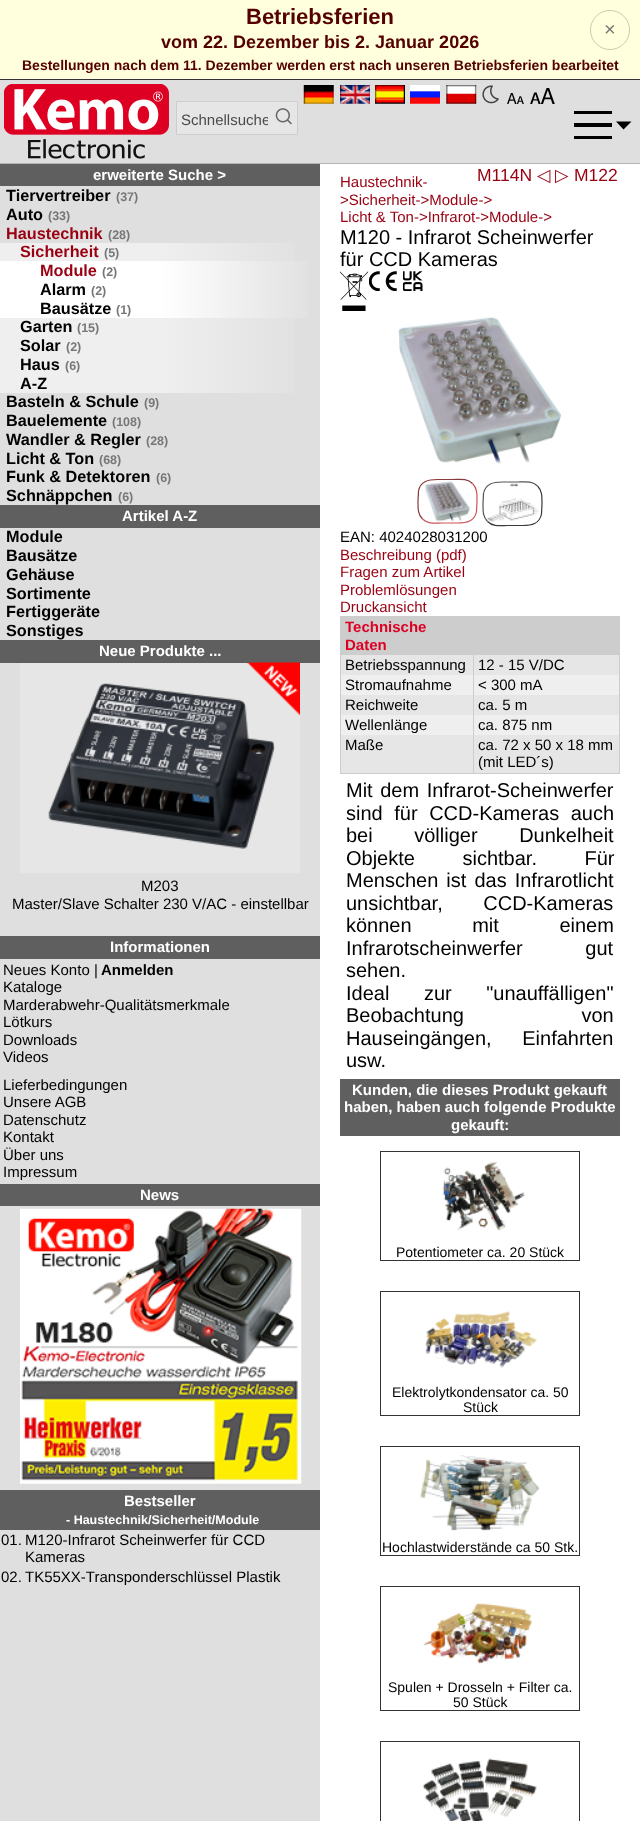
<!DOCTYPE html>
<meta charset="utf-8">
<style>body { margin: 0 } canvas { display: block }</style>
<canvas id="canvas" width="640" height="1821"></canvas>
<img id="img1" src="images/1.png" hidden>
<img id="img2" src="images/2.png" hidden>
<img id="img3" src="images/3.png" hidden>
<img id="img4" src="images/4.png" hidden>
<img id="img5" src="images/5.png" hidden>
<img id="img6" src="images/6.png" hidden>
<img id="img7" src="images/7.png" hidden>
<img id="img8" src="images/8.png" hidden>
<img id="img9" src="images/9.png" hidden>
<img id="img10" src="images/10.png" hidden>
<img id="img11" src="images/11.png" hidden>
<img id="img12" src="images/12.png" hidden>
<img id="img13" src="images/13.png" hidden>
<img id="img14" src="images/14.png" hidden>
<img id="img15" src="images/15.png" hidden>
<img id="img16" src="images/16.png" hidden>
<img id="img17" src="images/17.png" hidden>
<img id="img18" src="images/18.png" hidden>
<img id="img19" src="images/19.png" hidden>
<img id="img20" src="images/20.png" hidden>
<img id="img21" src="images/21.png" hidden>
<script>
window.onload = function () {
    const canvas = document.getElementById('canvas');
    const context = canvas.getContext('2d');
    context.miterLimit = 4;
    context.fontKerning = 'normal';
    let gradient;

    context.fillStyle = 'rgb(223, 223, 223)';
    context.fillRect(0, 0, 640, 1821);
    context.fillStyle = 'rgb(255, 255, 221)';
    context.fillRect(0, 0, 640, 79);
    context.fillStyle = 'rgb(51, 51, 51)';
    context.fillRect(0, 79, 640, 1);
    context.beginPath();
    context.arc(610, 30, 19.5, 0, 2 * Math.PI);
    context.strokeStyle = 'rgb(204, 204, 170)';
    context.stroke();
    context.fillStyle = 'rgb(180, 180, 180)';
    context.fillRect(0, 163, 640, 1);
    context.drawImage(document.getElementById('img1'), 4, 84, 165, 75);
    context.drawImage(document.getElementById('img2'), 303, 85, 31, 19);
    context.drawImage(document.getElementById('img3'), 340, 85, 30, 19);
    context.drawImage(document.getElementById('img4'), 375, 85, 30, 19);
    context.drawImage(document.getElementById('img5'), 410, 85, 30, 19);
    context.drawImage(document.getElementById('img6'), 446, 85, 31, 19);
    context.drawImage(document.getElementById('img7'), 482, 85, 17, 19);
    context.fillStyle = 'rgb(230, 230, 230)';
    context.beginPath();
    context.rect(176.5, 101.5, 121, 33);
    context.fill();
    context.strokeStyle = 'rgb(205, 205, 205)';
    context.stroke();
    context.drawImage(document.getElementById('img8'), 275, 108, 17, 17);
    context.fillStyle = 'rgb(0, 0, 0)';
    context.fillRect(574, 111, 38, 3);
    context.fillRect(574, 123, 38, 4);
    context.beginPath();
    context.moveTo(616, 121.5);
    context.lineTo(623.5, 129.5);
    context.lineTo(631.5, 121.5);
    context.closePath();
    context.fill();
    context.fillRect(574, 136, 38, 3);
    context.fillStyle = 'rgb(95, 95, 95)';
    context.fillRect(0, 164, 320, 22);
    gradient = context.createLinearGradient(0, 252, 320, 252);
    gradient.addColorStop(0, 'rgb(239, 239, 239)');
    gradient.addColorStop(0.5, 'rgb(239, 239, 239)');
    gradient.addColorStop(1, 'rgb(223, 223, 223)');
    context.fillStyle = gradient;
    context.fillRect(0, 243, 295, 18);
    gradient = context.createLinearGradient(0, 271, 320, 271);
    gradient.addColorStop(0, 'rgb(255, 255, 255)');
    gradient.addColorStop(0.5, 'rgb(255, 255, 255)');
    gradient.addColorStop(1, 'rgb(223, 223, 223)');
    context.fillStyle = gradient;
    context.fillRect(0, 261, 308, 19);
    gradient = context.createLinearGradient(0, 289, 320, 289);
    gradient.addColorStop(0, 'rgb(255, 255, 255)');
    gradient.addColorStop(0.5, 'rgb(255, 255, 255)');
    gradient.addColorStop(1, 'rgb(223, 223, 223)');
    context.fillStyle = gradient;
    context.fillRect(0, 280, 308, 19);
    gradient = context.createLinearGradient(0, 308, 320, 308);
    gradient.addColorStop(0, 'rgb(255, 255, 255)');
    gradient.addColorStop(0.5, 'rgb(255, 255, 255)');
    gradient.addColorStop(1, 'rgb(223, 223, 223)');
    context.fillStyle = gradient;
    context.fillRect(0, 299, 308, 19);
    gradient = context.createLinearGradient(0, 327, 320, 327);
    gradient.addColorStop(0, 'rgb(239, 239, 239)');
    gradient.addColorStop(0.5, 'rgb(239, 239, 239)');
    gradient.addColorStop(1, 'rgb(223, 223, 223)');
    context.fillStyle = gradient;
    context.fillRect(0, 318, 295, 18);
    gradient = context.createLinearGradient(0, 346, 320, 346);
    gradient.addColorStop(0, 'rgb(239, 239, 239)');
    gradient.addColorStop(0.5, 'rgb(239, 239, 239)');
    gradient.addColorStop(1, 'rgb(223, 223, 223)');
    context.fillStyle = gradient;
    context.fillRect(0, 336, 295, 19);
    gradient = context.createLinearGradient(0, 364, 320, 364);
    gradient.addColorStop(0, 'rgb(239, 239, 239)');
    gradient.addColorStop(0.5, 'rgb(239, 239, 239)');
    gradient.addColorStop(1, 'rgb(223, 223, 223)');
    context.fillStyle = gradient;
    context.fillRect(0, 355, 295, 19);
    gradient = context.createLinearGradient(0, 383, 320, 383);
    gradient.addColorStop(0, 'rgb(239, 239, 239)');
    gradient.addColorStop(0.5, 'rgb(239, 239, 239)');
    gradient.addColorStop(1, 'rgb(223, 223, 223)');
    context.fillStyle = gradient;
    context.fillRect(0, 374, 295, 19);
    context.fillStyle = 'rgb(95, 95, 95)';
    context.fillRect(0, 505, 320, 23);
    context.fillRect(0, 640, 320, 23);
    context.fillStyle = 'rgb(230, 230, 230)';
    context.fillRect(20, 663, 280, 210);
    context.drawImage(document.getElementById('img9'), 48, 662, 252, 187);
    context.fillStyle = 'rgb(95, 95, 95)';
    context.fillRect(0, 936, 320, 23);
    context.fillRect(0, 1184, 320, 22);
    context.drawImage(document.getElementById('img10'), 20, 1208, 282, 276);
    context.fillRect(0, 1490, 320, 40);
    context.fillStyle = 'rgb(255, 255, 255)';
    context.fillRect(320, 164, 320, 1657);
    context.drawImage(document.getElementById('img11'), 340, 271, 29, 40);
    context.drawImage(document.getElementById('img12'), 369, 271, 28, 20);
    context.drawImage(document.getElementById('img13'), 403, 271, 20, 20);
    context.drawImage(document.getElementById('img14'), 398, 317, 163, 147);
    context.beginPath();
    context.moveTo(472.5, 483.5);
    context.bezierCurveTo(477.5, 488.5, 477, 495, 477, 501);
    context.lineTo(476.5, 511.5);
    context.bezierCurveTo(474.5, 521.5, 466.5, 523, 457.5, 523);
    context.lineTo(442.5, 523);
    context.bezierCurveTo(435.5, 523, 428, 524.5, 422.5, 519);
    context.strokeStyle = 'rgb(204, 85, 85)';
    context.lineWidth = 1.2;
    context.stroke();
    context.beginPath();
    context.moveTo(422.5, 519);
    context.bezierCurveTo(417.5, 514, 418, 507.5, 418, 501);
    context.lineTo(418.5, 491);
    context.bezierCurveTo(420.5, 481, 428.5, 479.5, 437.5, 479.5);
    context.lineTo(452.5, 479.5);
    context.bezierCurveTo(459.5, 479.5, 467, 478, 472.5, 483.5);
    context.strokeStyle = 'rgb(136, 57, 57)';
    context.stroke();
    context.drawImage(document.getElementById('img15'), 425, 481, 46, 41);
    context.beginPath();
    context.moveTo(537.5, 486);
    context.bezierCurveTo(542.5, 491, 542, 497.5, 542, 504);
    context.lineTo(541.5, 514);
    context.bezierCurveTo(539.5, 524, 531.5, 525.5, 522.5, 525.5);
    context.lineTo(507.5, 525.5);
    context.bezierCurveTo(500.5, 525.5, 493, 527, 487.5, 521.5);
    context.strokeStyle = 'rgb(57, 57, 57)';
    context.stroke();
    context.beginPath();
    context.moveTo(487.5, 521.5);
    context.bezierCurveTo(482.5, 516.5, 483, 510, 483, 504);
    context.lineTo(483.5, 493.5);
    context.bezierCurveTo(485.5, 483.5, 493.5, 482, 502.5, 482);
    context.lineTo(517.5, 482);
    context.bezierCurveTo(524.5, 482, 532, 480.5, 537.5, 486);
    context.strokeStyle = 'rgb(85, 85, 85)';
    context.stroke();
    context.drawImage(document.getElementById('img16'), 487, 483, 52, 39);
    context.fillStyle = 'rgb(205, 205, 205)';
    context.fillRect(340, 616, 280, 158);
    context.fillStyle = 'rgb(230, 230, 230)';
    context.fillRect(341, 655, 132, 20);
    context.fillRect(474, 655, 145, 20);
    context.fillStyle = 'rgb(239, 239, 239)';
    context.fillRect(341, 675, 132, 20);
    context.fillRect(474, 675, 145, 20);
    context.fillStyle = 'rgb(230, 230, 230)';
    context.fillRect(341, 695, 132, 20);
    context.fillRect(474, 695, 145, 20);
    context.fillStyle = 'rgb(239, 239, 239)';
    context.fillRect(341, 715, 132, 20);
    context.fillRect(474, 715, 145, 20);
    context.fillStyle = 'rgb(230, 230, 230)';
    context.fillRect(341, 735, 132, 38);
    context.fillRect(474, 735, 145, 38);
    context.fillStyle = 'rgb(95, 95, 95)';
    context.fillRect(340, 1079, 280, 57);
    context.strokeStyle = 'rgb(51, 51, 51)';
    context.lineWidth = 1;
    context.strokeRect(380.5, 1151.5, 199, 109);
    context.drawImage(document.getElementById('img17'), 442, 1161, 83, 70);
    context.strokeRect(380.5, 1291.5, 199, 124);
    context.drawImage(document.getElementById('img18'), 425, 1311, 113, 57);
    context.strokeRect(380.5, 1446.5, 199, 109);
    context.drawImage(document.getElementById('img19'), 420, 1455, 120, 76);
    context.strokeRect(380.5, 1586.5, 199, 124);
    context.drawImage(document.getElementById('img20'), 423, 1603, 110, 61);
    context.strokeRect(380.5, 1741.5, 199, 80);
    context.drawImage(document.getElementById('img21'), 422, 1758, 115, 63);
    context.font = 'bold 22px Liberation Sans';
    context.fillStyle = 'rgb(85, 0, 0)';
    context.fillText('Betriebsferien', 246, 24);
    context.font = '20px Liberation Sans';
    context.fillStyle = 'rgb(119, 119, 119)';
    context.fillText('×', 604, 36);
    context.font = 'bold 18px Liberation Sans';
    context.fillStyle = 'rgb(85, 0, 0)';
    context.fillText('vom 22. Dezember bis 2. Januar 2026', 161, 48);
    context.font = 'bold 14px Liberation Sans';
    context.fillText('Bestellungen nach dem 11. Dezember werden erst nach unseren Betriebsferien bearbeitet', 22, 70);
    context.font = '15px FreeSans';
    context.fillStyle = 'rgb(0, 0, 0)';
    context.fillText('🗛', 507, 104);
    context.font = '22px FreeSans';
    context.fillText('🗚', 530, 104);
    context.save();
    context.beginPath();
    context.rect(181, 111, 87, 18);
    context.clip();
    context.font = '15px Liberation Sans';
    context.fillStyle = 'rgb(75, 75, 75)';
    context.fillText('Schnellsuche', 181, 125);
    context.restore();
    context.font = 'bold 15px Liberation Sans';
    context.fillStyle = 'rgb(255, 255, 255)';
    context.fillText('erweiterte Suche >', 93, 180);
    context.font = 'bold 16.25px Liberation Sans';
    context.fillStyle = 'rgb(0, 0, 0)';
    context.fillText('Tiervertreiber', 6, 201);
    context.font = 'bold 12.5px Liberation Sans';
    context.fillStyle = 'rgb(119, 119, 119)';
    context.fillText('(37)', 116, 201);
    context.font = 'bold 16.25px Liberation Sans';
    context.fillStyle = 'rgb(0, 0, 0)';
    context.fillText('Auto', 6, 220);
    context.font = 'bold 12.5px Liberation Sans';
    context.fillStyle = 'rgb(119, 119, 119)';
    context.fillText('(33)', 48, 220);
    context.font = 'bold 16.25px Liberation Sans';
    context.fillStyle = 'rgb(153, 0, 17)';
    context.fillText('Haustechnik', 6, 239);
    context.font = 'bold 12.5px Liberation Sans';
    context.fillStyle = 'rgb(119, 119, 119)';
    context.fillText('(28)', 108, 239);
    context.font = 'bold 16.25px Liberation Sans';
    context.fillStyle = 'rgb(153, 0, 17)';
    context.fillText('Sicherheit', 20, 257);
    context.font = 'bold 12.5px Liberation Sans';
    context.fillStyle = 'rgb(119, 119, 119)';
    context.fillText('(5)', 104, 257);
    context.font = 'bold 16.25px Liberation Sans';
    context.fillStyle = 'rgb(153, 0, 17)';
    context.fillText('Module', 40, 276);
    context.font = 'bold 12.5px Liberation Sans';
    context.fillStyle = 'rgb(119, 119, 119)';
    context.fillText('(2)', 102, 276);
    context.font = 'bold 16.25px Liberation Sans';
    context.fillStyle = 'rgb(0, 0, 0)';
    context.fillText('Alarm', 40, 295);
    context.font = 'bold 12.5px Liberation Sans';
    context.fillStyle = 'rgb(119, 119, 119)';
    context.fillText('(2)', 91, 295);
    context.font = 'bold 16.25px Liberation Sans';
    context.fillStyle = 'rgb(0, 0, 0)';
    context.fillText('Bausätze', 40, 314);
    context.font = 'bold 12.5px Liberation Sans';
    context.fillStyle = 'rgb(119, 119, 119)';
    context.fillText('(1)', 116, 314);
    context.font = 'bold 16.25px Liberation Sans';
    context.fillStyle = 'rgb(0, 0, 0)';
    context.fillText('Garten', 20, 332);
    context.font = 'bold 12.5px Liberation Sans';
    context.fillStyle = 'rgb(119, 119, 119)';
    context.fillText('(15)', 77, 332);
    context.font = 'bold 16.25px Liberation Sans';
    context.fillStyle = 'rgb(0, 0, 0)';
    context.fillText('Solar', 20, 351);
    context.font = 'bold 12.5px Liberation Sans';
    context.fillStyle = 'rgb(119, 119, 119)';
    context.fillText('(2)', 66, 351);
    context.font = 'bold 16.25px Liberation Sans';
    context.fillStyle = 'rgb(0, 0, 0)';
    context.fillText('Haus', 20, 370);
    context.font = 'bold 12.5px Liberation Sans';
    context.fillStyle = 'rgb(119, 119, 119)';
    context.fillText('(6)', 65, 370);
    context.font = 'bold 16.25px Liberation Sans';
    context.fillStyle = 'rgb(0, 0, 0)';
    context.fillText('A-Z', 20, 389);
    context.fillText('Basteln & Schule', 6, 407);
    context.font = 'bold 12.5px Liberation Sans';
    context.fillStyle = 'rgb(119, 119, 119)';
    context.fillText('(9)', 144, 407);
    context.font = 'bold 16.25px Liberation Sans';
    context.fillStyle = 'rgb(0, 0, 0)';
    context.fillText('Bauelemente', 6, 426);
    context.font = 'bold 12.5px Liberation Sans';
    context.fillStyle = 'rgb(119, 119, 119)';
    context.fillText('(108)', 112, 426);
    context.font = 'bold 16.25px Liberation Sans';
    context.fillStyle = 'rgb(0, 0, 0)';
    context.fillText('Wandler & Regler', 6, 445);
    context.font = 'bold 12.5px Liberation Sans';
    context.fillStyle = 'rgb(119, 119, 119)';
    context.fillText('(28)', 146, 445);
    context.font = 'bold 16.25px Liberation Sans';
    context.fillStyle = 'rgb(0, 0, 0)';
    context.fillText('Licht & Ton', 6, 464);
    context.font = 'bold 12.5px Liberation Sans';
    context.fillStyle = 'rgb(119, 119, 119)';
    context.fillText('(68)', 99, 464);
    context.font = 'bold 16.25px Liberation Sans';
    context.fillStyle = 'rgb(0, 0, 0)';
    context.fillText('Funk & Detektoren', 6, 482);
    context.font = 'bold 12.5px Liberation Sans';
    context.fillStyle = 'rgb(119, 119, 119)';
    context.fillText('(6)', 156, 482);
    context.font = 'bold 16.25px Liberation Sans';
    context.fillStyle = 'rgb(0, 0, 0)';
    context.fillText('Schnäppchen', 6, 501);
    context.font = 'bold 12.5px Liberation Sans';
    context.fillStyle = 'rgb(119, 119, 119)';
    context.fillText('(6)', 118, 501);
    context.font = 'bold 15px Liberation Sans';
    context.fillStyle = 'rgb(255, 255, 255)';
    context.fillText('Artikel A-Z', 122, 521);
    context.font = 'bold 16.25px Liberation Sans';
    context.fillStyle = 'rgb(0, 0, 0)';
    context.fillText('Module', 6, 542);
    context.fillText('Bausätze', 6, 561);
    context.fillText('Gehäuse', 6, 580);
    context.fillText('Sortimente', 6, 599);
    context.fillText('Fertiggeräte', 6, 617);
    context.fillText('Sonstiges', 6, 636);
    context.font = 'bold 15px Liberation Sans';
    context.fillStyle = 'rgb(255, 255, 255)';
    context.fillText('Neue Produkte ...', 99, 656);
    context.font = '15px Liberation Sans';
    context.fillStyle = 'rgb(0, 0, 0)';
    context.fillText('M203', 141, 891);
    context.fillText('Master/Slave Schalter 230 V/AC - einstellbar', 12, 909);
    context.font = 'bold 15px Liberation Sans';
    context.fillStyle = 'rgb(255, 255, 255)';
    context.fillText('Informationen', 110, 952);
    context.font = '15px Liberation Sans';
    context.fillStyle = 'rgb(0, 0, 0)';
    context.fillText('Neues Konto |', 3, 975);
    context.font = 'bold 15px Liberation Sans';
    context.fillText('Anmelden', 101, 975);
    context.font = '15px Liberation Sans';
    context.fillText('Kataloge', 3, 992);
    context.fillText('Marderabwehr-Qualitätsmerkmale', 3, 1010);
    context.fillText('Lötkurs', 3, 1027);
    context.fillText('Downloads', 3, 1045);
    context.fillText('Videos', 3, 1062);
    context.fillText('Lieferbedingungen', 3, 1090);
    context.fillText('Unsere AGB', 3, 1107);
    context.fillText('Datenschutz', 3, 1125);
    context.fillText('Kontakt', 3, 1142);
    context.fillText('Über uns', 3, 1160);
    context.fillText('Impressum', 3, 1177);
    context.font = 'bold 15px Liberation Sans';
    context.fillStyle = 'rgb(255, 255, 255)';
    context.fillText('News', 140, 1200);
    context.fillText('Bestseller', 124, 1506);
    context.font = 'bold 12.5px Liberation Sans';
    context.fillText('- Haustechnik/Sicherheit/Module', 66, 1524);
    context.font = '15px Liberation Sans';
    context.fillStyle = 'rgb(0, 0, 0)';
    context.fillText('01.', 1, 1545);
    context.fillText('M120-Infrarot Scheinwerfer für CCD', 25, 1545);
    context.fillText('Kameras', 25, 1562);
    context.fillText('02.', 1, 1582);
    context.fillText('TK55XX-Transponderschlüssel Plastik', 25, 1582);
    context.font = '17.5px Liberation Sans';
    context.fillStyle = 'rgb(153, 0, 17)';
    context.fillText('M114N', 477, 181);
    context.font = '17.5px DejaVu Sans';
    context.fillText('◁', 537, 181);
    context.fillText('▷', 555, 181);
    context.font = '17.5px Liberation Sans';
    context.fillText('M122', 574, 181);
    context.font = '15px Liberation Sans';
    context.fillText('Haustechnik-', 340, 187);
    context.fillText('>Sicherheit->Module->', 340, 205);
    context.fillText('Licht & Ton->Infrarot->Module->', 340, 222);
    context.font = '20px Liberation Sans';
    context.fillStyle = 'rgb(0, 0, 0)';
    context.fillText('M120 - Infrarot Scheinwerfer', 340, 244);
    context.fillText('für CCD Kameras', 340, 266);
    context.font = '15px Liberation Sans';
    context.fillText('EAN: 4024028031200', 340, 542);
    context.fillStyle = 'rgb(153, 0, 17)';
    context.fillText('Beschreibung (pdf)', 340, 560);
    context.fillText('Fragen zum Artikel', 340, 577);
    context.fillText('Problemlösungen', 340, 595);
    context.fillText('Druckansicht', 340, 612);
    context.font = 'bold 15px Liberation Sans';
    context.fillStyle = 'rgb(221, 0, 34)';
    context.fillText('Technische', 345, 632);
    context.fillText('Daten', 345, 650);
    context.font = '15px Liberation Sans';
    context.fillStyle = 'rgb(0, 0, 0)';
    context.fillText('Betriebsspannung', 345, 670);
    context.fillText('12 - 15 V/DC', 478, 670);
    context.fillText('Stromaufnahme', 345, 690);
    context.fillText('< 300 mA', 478, 690);
    context.fillText('Reichweite', 345, 710);
    context.fillText('ca. 5 m', 478, 710);
    context.fillText('Wellenlänge', 345, 730);
    context.fillText('ca. 875 nm', 478, 730);
    context.fillText('Maße', 345, 750);
    context.fillText('ca. 72 x 50 x 18 mm', 478, 750);
    context.fillText('(mit LED´s)', 478, 767);
    context.wordSpacing = '2px';
    context.font = '20px Liberation Sans';
    context.fillText('Mit dem Infrarot-Scheinwerfer', 346, 797);
    context.wordSpacing = '6px';
    context.fillText('sind für CCD-Kameras auch', 346, 820);
    context.wordSpacing = '36px';
    context.fillText('bei völliger Dunkelheit', 346, 842);
    context.wordSpacing = '42px';
    context.fillText('Objekte sichtbar. Für', 346, 865);
    context.wordSpacing = '2.5px';
    context.fillText('Menschen ist das Infrarotlicht', 346, 887);
    context.wordSpacing = '35px';
    context.fillText('unsichtbar, CCD-Kameras', 346, 910);
    context.wordSpacing = '55px';
    context.fillText('können mit einem', 346, 932);
    context.wordSpacing = '57px';
    context.fillText('Infrarotscheinwerfer gut', 346, 955);
    context.wordSpacing = '0px';
    context.fillText('sehen.', 346, 977);
    context.wordSpacing = '29px';
    context.fillText('Ideal zur "unauffälligen"', 346, 1000);
    context.wordSpacing = '112px';
    context.fillText('Beobachtung von', 346, 1022);
    context.wordSpacing = '25px';
    context.fillText('Hauseingängen, Einfahrten', 346, 1045);
    context.wordSpacing = '0px';
    context.fillText('usw.', 346, 1067);
    context.font = 'bold 15px Liberation Sans';
    context.fillStyle = 'rgb(255, 255, 255)';
    context.fillText('Kunden, die dieses Produkt gekauft', 352, 1095);
    context.fillText('haben, haben auch folgende Produkte', 344, 1112);
    context.fillText('gekauft:', 451, 1130);
    context.font = '14px Liberation Sans';
    context.fillStyle = 'rgb(0, 0, 0)';
    context.fillText('Potentiometer ca. 20 Stück', 396, 1257);
    context.fillText('Elektrolytkondensator ca. 50', 392, 1397);
    context.fillText('Stück', 463, 1412);
    context.fillText('Hochlastwiderstände ca 50 Stk.', 382, 1552);
    context.fillText('Spulen + Drosseln + Filter ca.', 388, 1692);
    context.fillText('50 Stück', 453, 1707);
};
</script>
